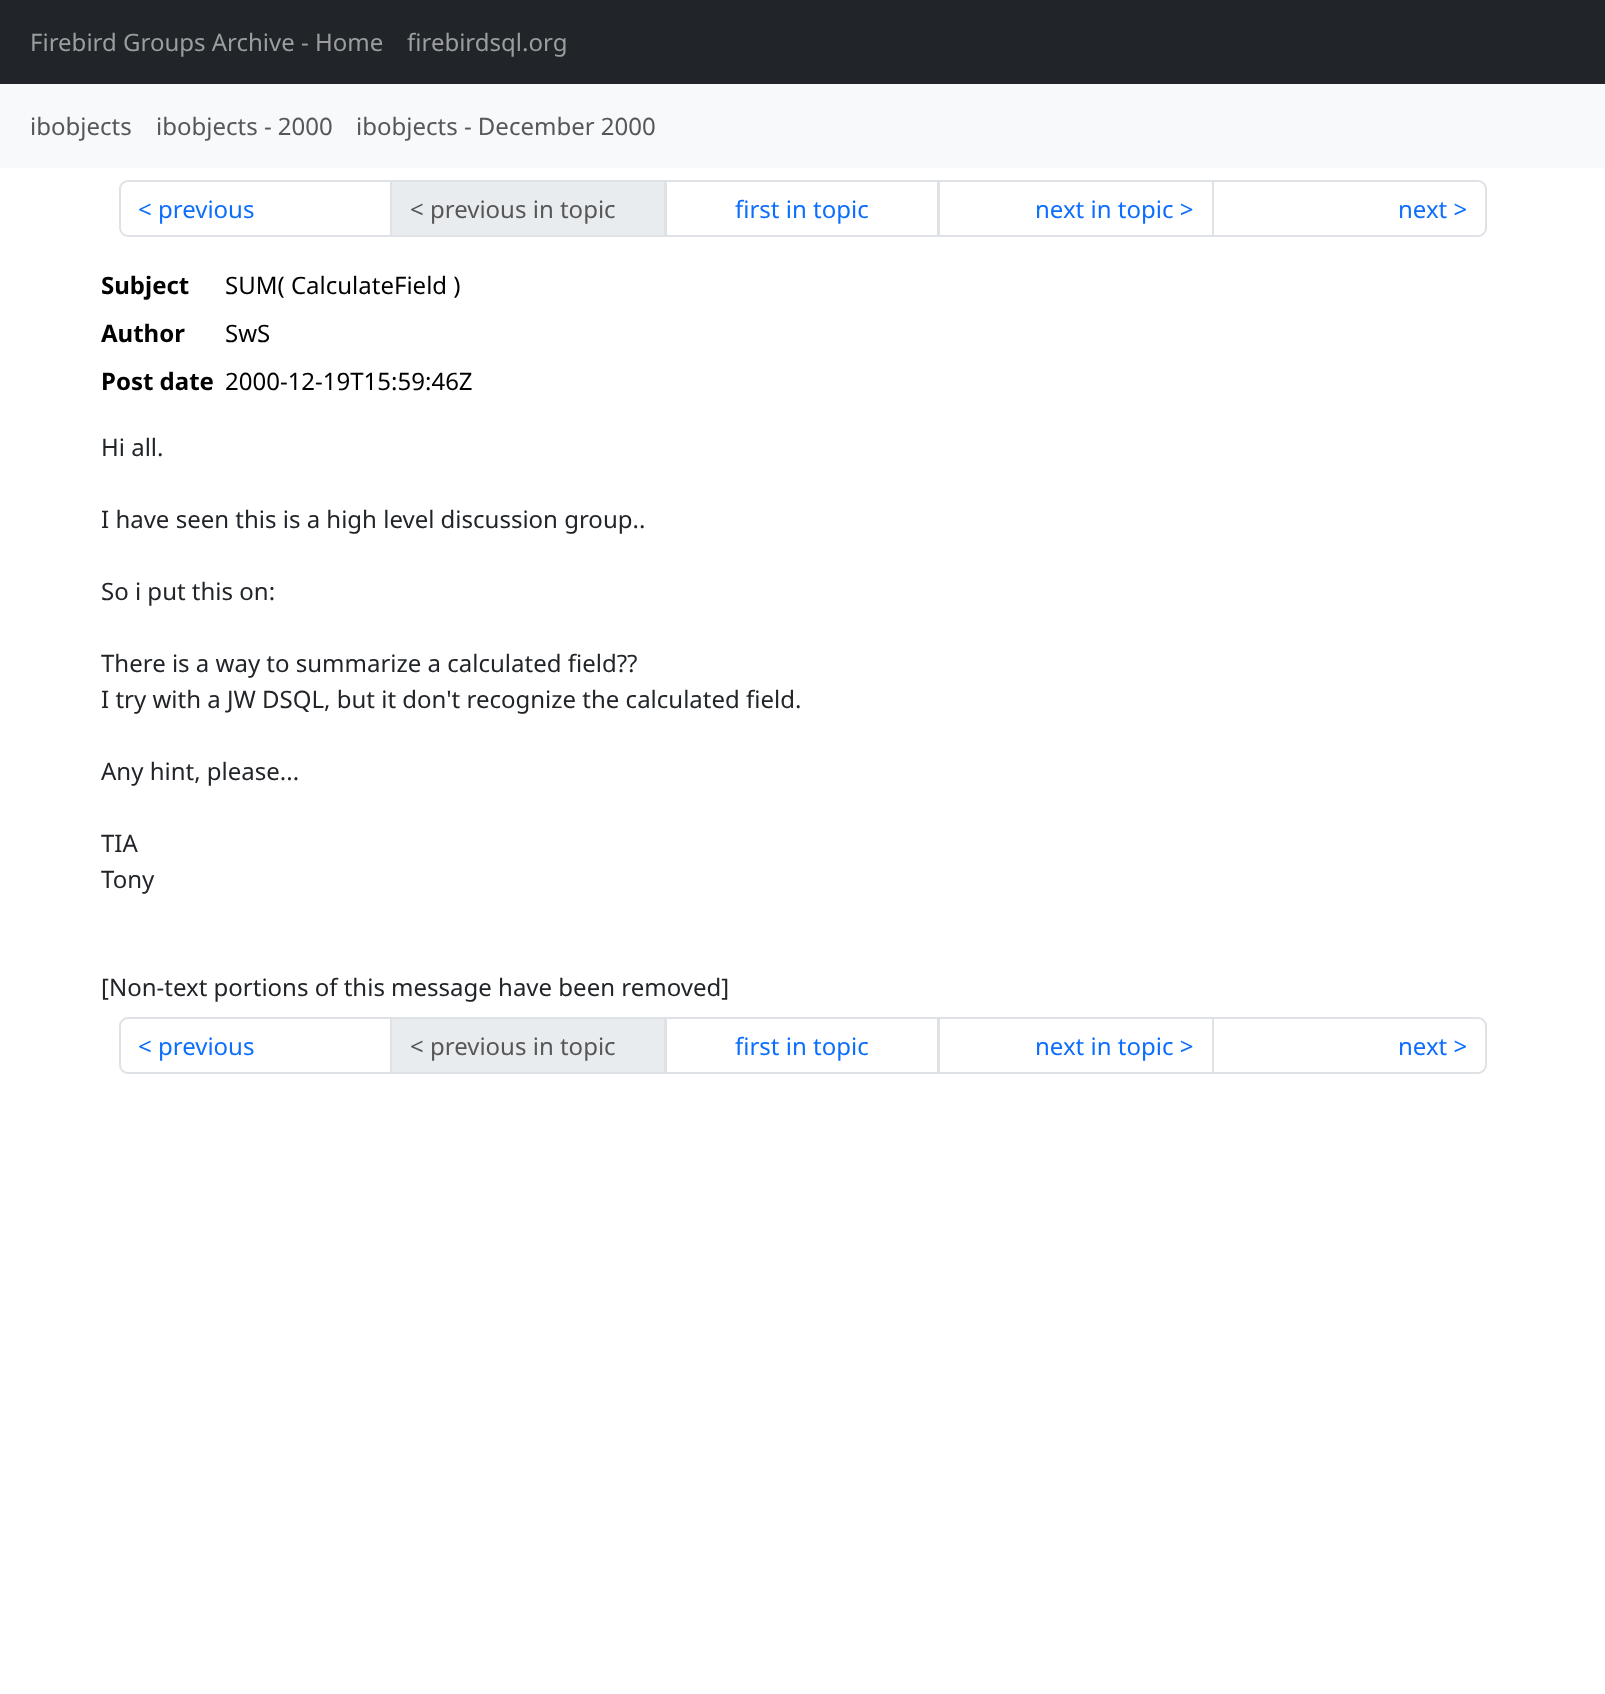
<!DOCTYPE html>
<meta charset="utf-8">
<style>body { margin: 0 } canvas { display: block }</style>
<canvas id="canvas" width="1605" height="1694"></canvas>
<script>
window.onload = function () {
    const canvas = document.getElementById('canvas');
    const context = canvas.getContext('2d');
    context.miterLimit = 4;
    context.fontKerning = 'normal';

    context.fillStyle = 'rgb(255, 255, 255)';
    context.fillRect(0, 0, 1605, 1694);
    context.fillStyle = 'rgb(33, 37, 41)';
    context.fillRect(0, 0, 1605, 84);
    context.fillStyle = 'rgb(248, 249, 250)';
    context.fillRect(0, 84, 1605, 84);
    context.beginPath();
    context.roundRect(120, 181, 271, 55, [8, 0, 0, 8]);
    context.strokeStyle = 'rgb(222, 226, 230)';
    context.lineWidth = 2;
    context.stroke();
    context.fillStyle = 'rgb(233, 236, 239)';
    context.beginPath();
    context.rect(391, 181, 274, 55);
    context.fill();
    context.stroke();
    context.strokeRect(666, 181, 272, 55);
    context.strokeRect(939, 181, 274, 55);
    context.fillStyle = 'rgb(255, 255, 255)';
    context.beginPath();
    context.roundRect(1213, 181, 273, 55, [0, 8, 8, 0]);
    context.fill();
    context.stroke();
    context.beginPath();
    context.roundRect(120, 1018, 271, 55, [8, 0, 0, 8]);
    context.stroke();
    context.fillStyle = 'rgb(233, 236, 239)';
    context.beginPath();
    context.rect(391, 1018, 274, 55);
    context.fill();
    context.stroke();
    context.strokeRect(666, 1018, 272, 55);
    context.strokeRect(939, 1018, 274, 55);
    context.fillStyle = 'rgb(255, 255, 255)';
    context.beginPath();
    context.roundRect(1213, 1018, 273, 55, [0, 8, 8, 0]);
    context.fill();
    context.stroke();
    context.font = '24px Noto Sans';
    context.fillStyle = 'rgb(155, 157, 159)';
    context.fillText('Firebird Groups Archive - Home', 30, 51);
    context.fillText('firebirdsql.org', 407, 51);
    context.fillStyle = 'rgb(87, 87, 88)';
    context.fillText('ibobjects', 30, 135);
    context.fillText('ibobjects - 2000', 156, 135);
    context.fillText('ibobjects - December 2000', 356, 135);
    context.fillStyle = 'rgb(13, 110, 253)';
    context.fillText('< previous', 138, 218);
    context.fillStyle = 'rgb(87, 87, 88)';
    context.fillText('< previous in topic', 410, 218);
    context.fillStyle = 'rgb(13, 110, 253)';
    context.fillText('first in topic', 735, 218);
    context.fillText('next in topic >', 1035, 218);
    context.fillText('next >', 1398, 218);
    context.font = 'bold 24px Noto Sans';
    context.fillStyle = 'rgb(0, 0, 0)';
    context.fillText('Subject', 101, 294);
    context.font = '24px Noto Sans';
    context.fillText('SUM( CalculateField )', 225, 294);
    context.font = 'bold 24px Noto Sans';
    context.fillText('Author', 101, 342);
    context.font = '24px Noto Sans';
    context.fillText('SwS', 225, 342);
    context.font = 'bold 24px Noto Sans';
    context.fillText('Post date', 101, 390);
    context.font = '24px Noto Sans';
    context.fillText('2000-12-19T15:59:46Z', 225, 390);
    context.fillStyle = 'rgb(33, 37, 41)';
    context.fillText('Hi all.', 101, 456);
    context.fillText('I have seen this is a high level discussion group..', 101, 528);
    context.fillText('So i put this on:', 101, 600);
    context.fillText('There is a way to summarize a calculated field??', 101, 672);
    context.fillText('I try with a JW DSQL, but it don\'t recognize the calculated field.', 101, 708);
    context.fillText('Any hint, please...', 101, 780);
    context.fillText('TIA', 101, 852);
    context.fillText('Tony', 101, 888);
    context.fillText('[Non-text portions of this message have been removed]', 101, 996);
    context.fillStyle = 'rgb(13, 110, 253)';
    context.fillText('< previous', 138, 1055);
    context.fillStyle = 'rgb(87, 87, 88)';
    context.fillText('< previous in topic', 410, 1055);
    context.fillStyle = 'rgb(13, 110, 253)';
    context.fillText('first in topic', 735, 1055);
    context.fillText('next in topic >', 1035, 1055);
    context.fillText('next >', 1398, 1055);
};
</script>
